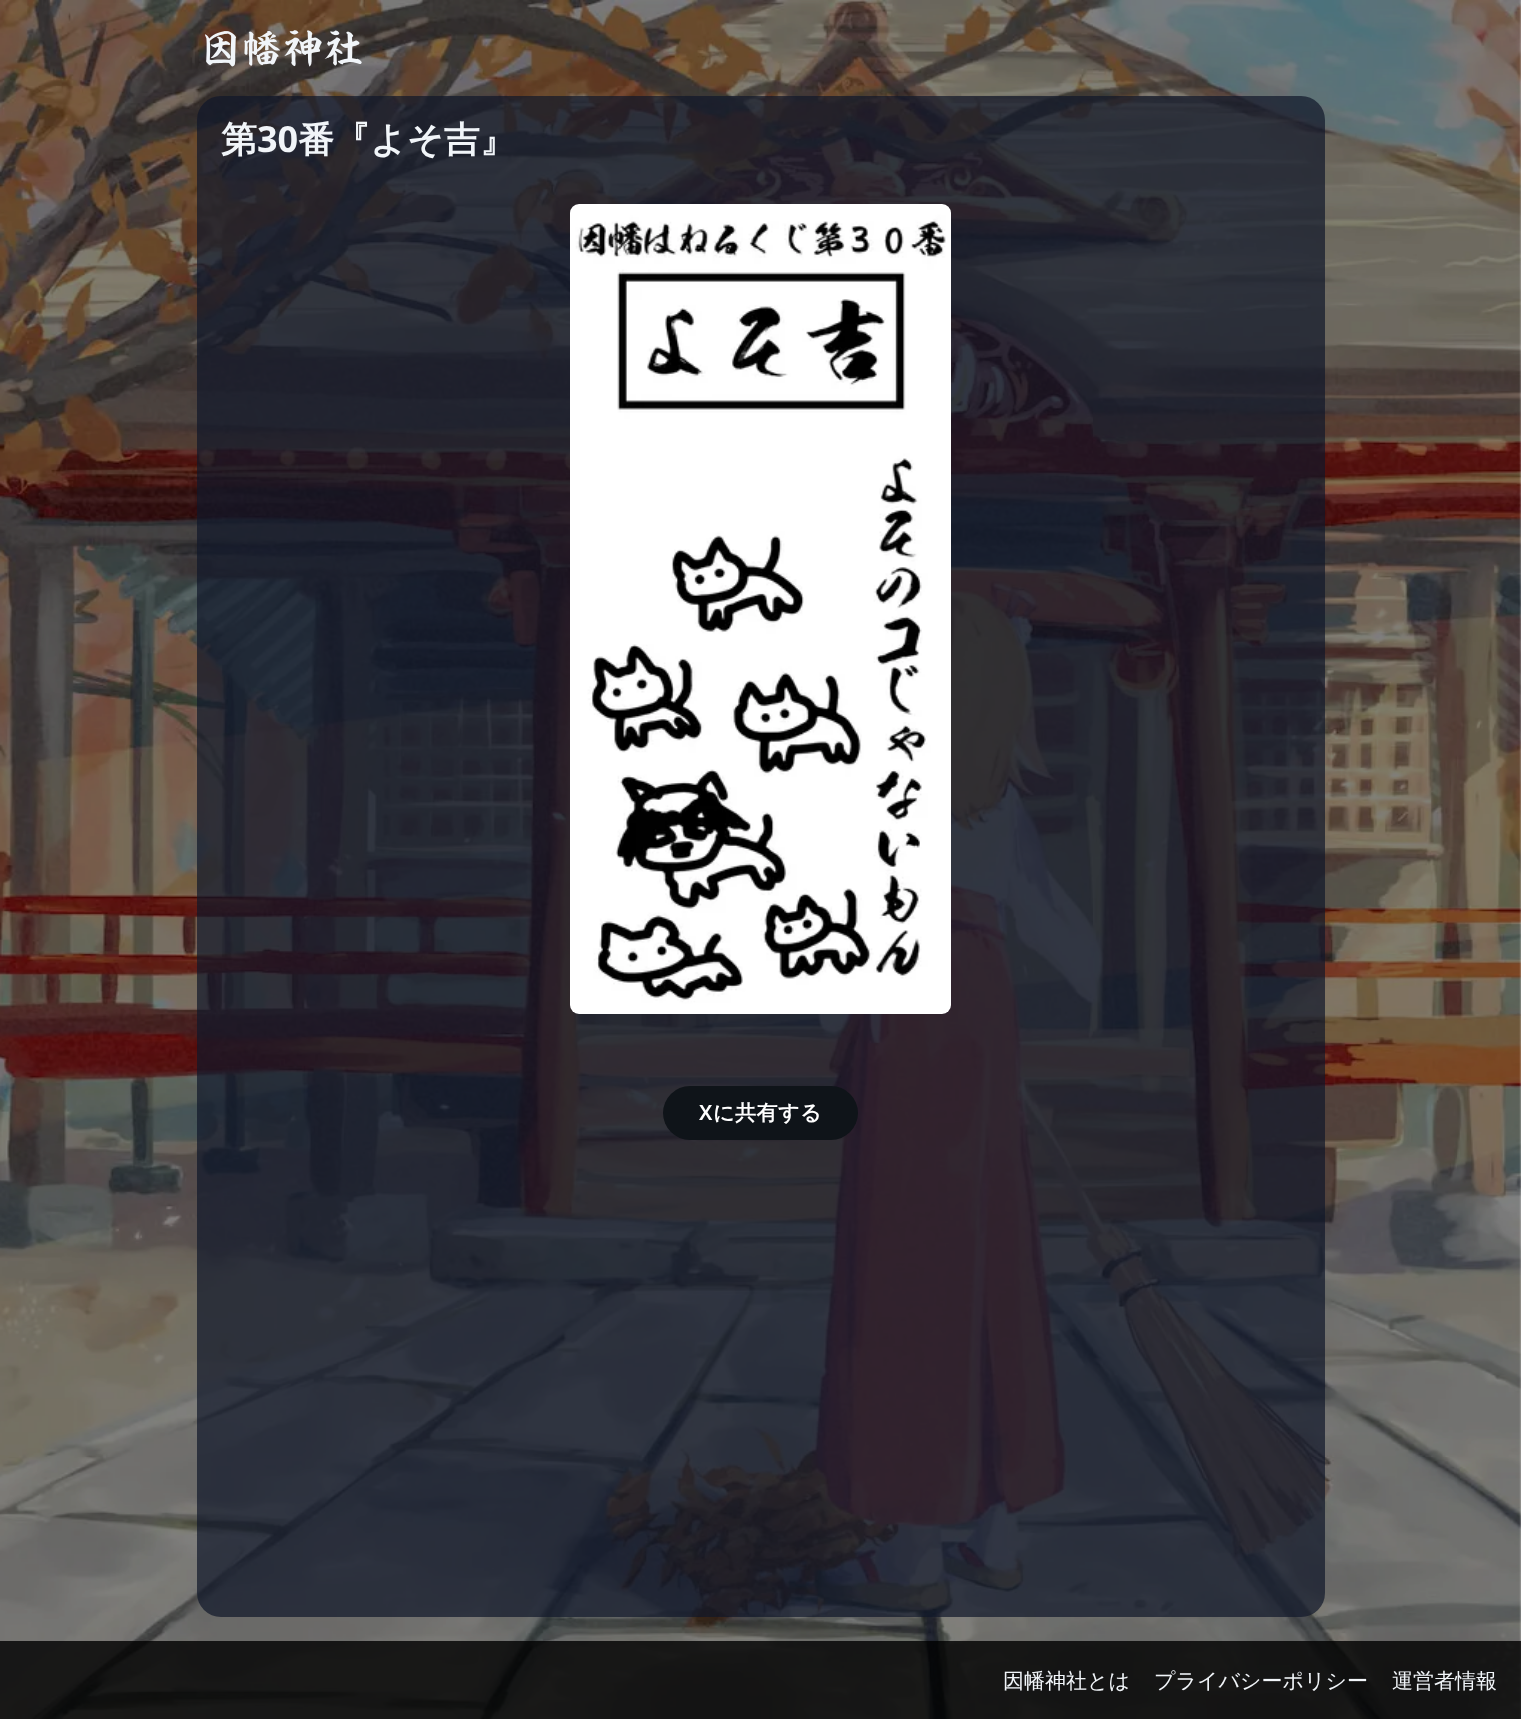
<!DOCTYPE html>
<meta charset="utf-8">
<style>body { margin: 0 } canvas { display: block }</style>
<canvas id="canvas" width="1521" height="1719"></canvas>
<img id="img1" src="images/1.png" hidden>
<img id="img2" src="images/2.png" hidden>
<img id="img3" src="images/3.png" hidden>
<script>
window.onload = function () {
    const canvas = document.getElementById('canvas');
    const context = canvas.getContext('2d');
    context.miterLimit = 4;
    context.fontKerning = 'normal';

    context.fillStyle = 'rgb(255, 255, 255)';
    context.fillRect(0, 0, 1521, 1719);
    context.drawImage(document.getElementById('img1'), 0, 0, 1521, 1719);
    context.drawImage(document.getElementById('img2'), 204, 30, 158, 37);
    context.fillStyle = 'rgba(15, 23, 42, 0.7)';
    context.beginPath();
    context.roundRect(197, 96, 1128, 1521, 24);
    context.fill();
    context.drawImage(document.getElementById('img3'), 570, 204, 381, 810);
    context.fillStyle = 'rgb(15, 20, 25)';
    context.beginPath();
    context.roundRect(663, 1086, 195, 54, 27);
    context.fill();
    context.fillStyle = 'rgba(0, 0, 0, 0.8)';
    context.fillRect(0, 1641, 1521, 78);
    context.font = 'bold 36px WenQuanYi Zen Hei';
    context.fillStyle = 'rgb(241, 245, 249)';
    context.fillText('第', 221, 152);
    context.font = 'bold 36px Noto Sans';
    context.fillText('30', 257, 152);
    context.font = 'bold 36px WenQuanYi Zen Hei';
    context.fillText('番『よそ吉』', 298, 152);
    context.letterSpacing = '0.5px';
    context.font = '600 21px Noto Sans';
    context.fillStyle = 'rgb(255, 255, 255)';
    context.fillText('X', 699, 1120);
    context.font = 'bold 21px WenQuanYi Zen Hei';
    context.fillText('に共有する', 713, 1120);
    context.letterSpacing = '0px';
    context.font = '500 21px WenQuanYi Zen Hei';
    context.fillStyle = 'rgb(241, 245, 249)';
    context.fillText('因幡神社とは', 1003, 1688);
    context.fillText('プライバシーポリシー', 1154, 1688);
    context.fillText('運営者情報', 1392, 1688);
};
</script>
